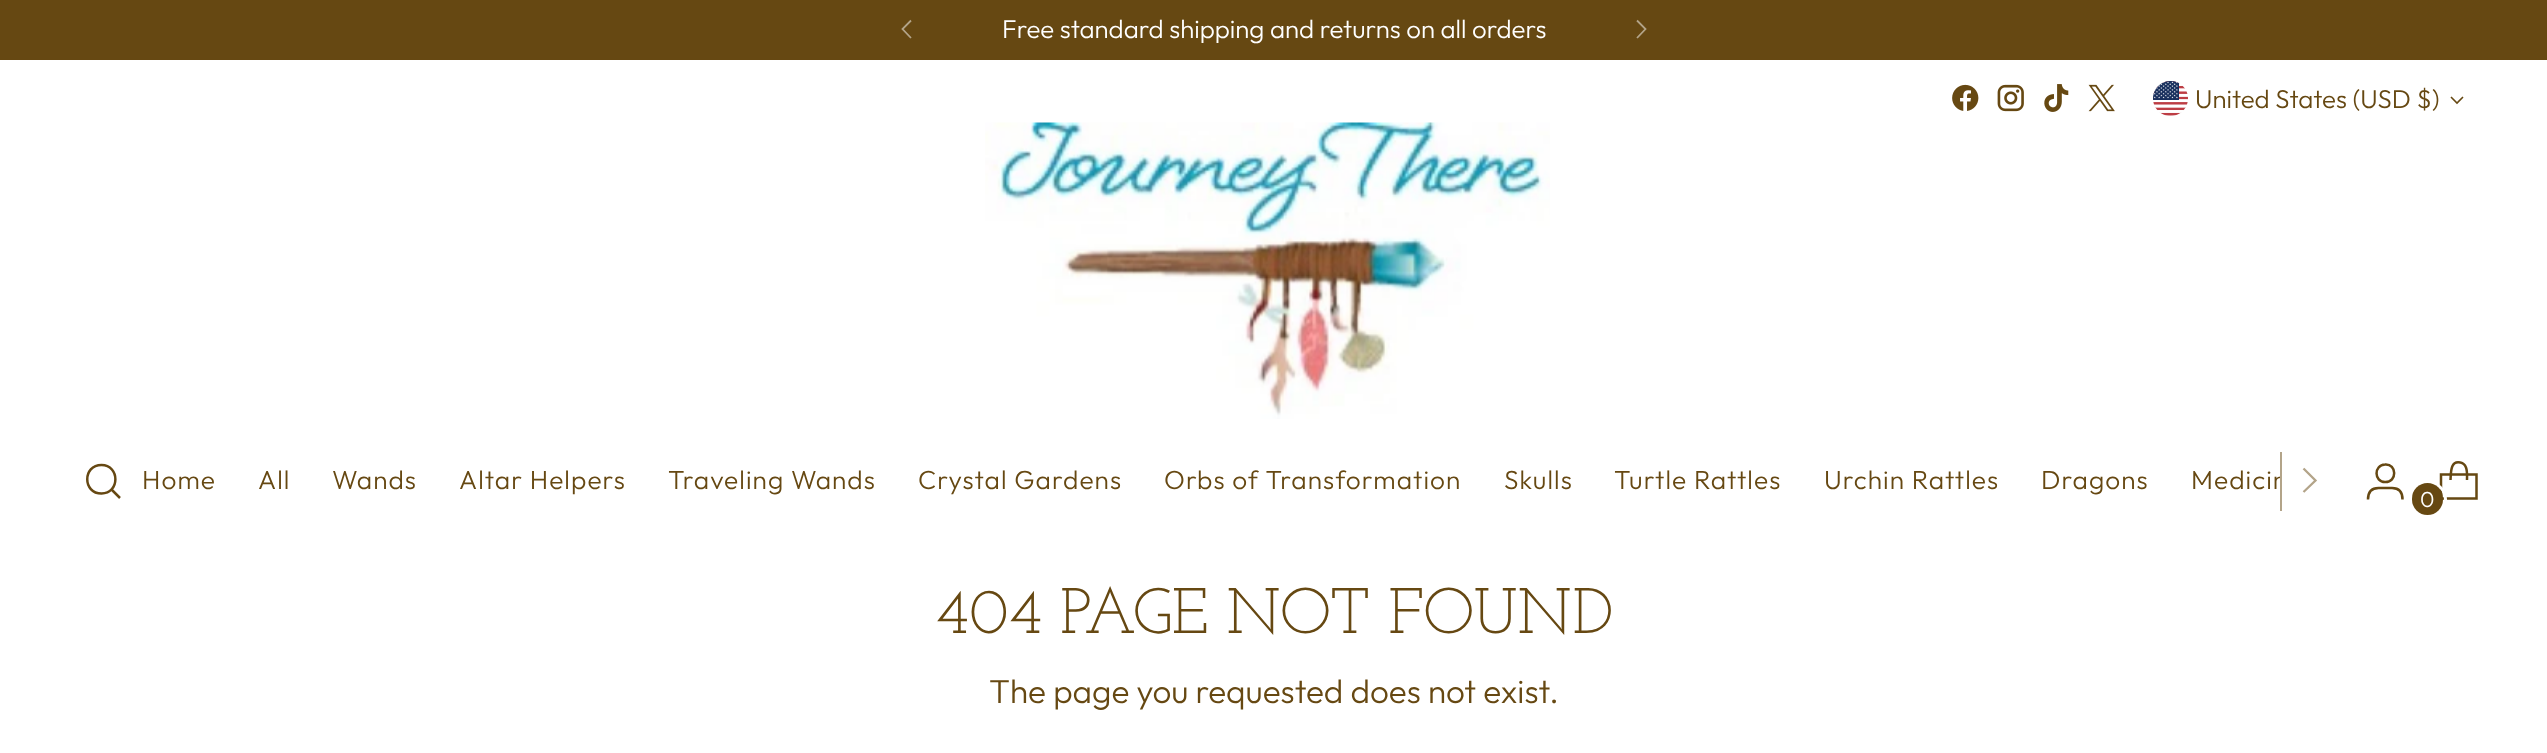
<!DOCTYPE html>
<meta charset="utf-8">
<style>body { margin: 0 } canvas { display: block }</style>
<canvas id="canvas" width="2547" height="753"></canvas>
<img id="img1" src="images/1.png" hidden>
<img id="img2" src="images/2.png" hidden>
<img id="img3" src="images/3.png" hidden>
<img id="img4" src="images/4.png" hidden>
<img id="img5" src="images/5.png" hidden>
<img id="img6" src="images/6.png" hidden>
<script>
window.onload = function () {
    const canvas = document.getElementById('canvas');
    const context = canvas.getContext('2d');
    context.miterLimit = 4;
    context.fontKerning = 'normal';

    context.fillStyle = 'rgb(255, 255, 255)';
    context.fillRect(0, 0, 2547, 753);
    context.fillStyle = 'rgb(102, 72, 18)';
    context.fillRect(0, 0, 2547, 60);
    context.beginPath();
    context.moveTo(911, 20.5);
    context.lineTo(902.5, 29);
    context.lineTo(911, 38);
    context.strokeStyle = 'rgb(179, 164, 137)';
    context.lineWidth = 1.8;
    context.stroke();
    context.beginPath();
    context.moveTo(1637, 38);
    context.lineTo(1645.5, 29);
    context.lineTo(1637, 20.5);
    context.stroke();
    context.drawImage(document.getElementById('img1'), 1952, 84, 27, 27);
    context.drawImage(document.getElementById('img2'), 1997, 84, 27, 28);
    context.drawImage(document.getElementById('img3'), 2044, 84, 25, 28);
    context.drawImage(document.getElementById('img4'), 2088, 84, 27, 28);
    context.drawImage(document.getElementById('img5'), 2153, 81, 35, 35);
    context.beginPath();
    context.moveTo(2451, 97);
    context.lineTo(2457, 103);
    context.lineTo(2463, 97);
    context.strokeStyle = 'rgb(102, 72, 18)';
    context.lineWidth = 1.6;
    context.stroke();
    context.drawImage(document.getElementById('img6'), 985, 122, 565, 297);
    context.beginPath();
    context.moveTo(101.5, 493.5);
    context.bezierCurveTo(120, 493.5, 120, 465, 101.5, 465);
    context.bezierCurveTo(82.5, 465, 82.5, 493.5, 101.5, 493.5);
    context.closePath();
    context.lineWidth = 2.5;
    context.lineCap = 'round';
    context.stroke();
    context.beginPath();
    context.moveTo(111.5, 489.5);
    context.lineTo(120, 498);
    context.lineCap = 'butt';
    context.stroke();
    context.fillStyle = 'rgb(179, 164, 137)';
    context.fillRect(2280, 452, 2, 59);
    context.beginPath();
    context.moveTo(2303.5, 492);
    context.lineTo(2315.5, 480.5);
    context.lineTo(2303.5, 468.5);
    context.strokeStyle = 'rgb(179, 164, 137)';
    context.lineWidth = 2.3;
    context.stroke();
    context.beginPath();
    context.moveTo(2385, 482);
    context.bezierCurveTo(2397.5, 482.5, 2397, 463.5, 2385, 464.5);
    context.bezierCurveTo(2373.5, 465, 2374, 482, 2385, 482);
    context.closePath();
    context.moveTo(2368, 499.5);
    context.bezierCurveTo(2368, 493, 2371, 488, 2378.5, 488);
    context.lineTo(2392, 488);
    context.bezierCurveTo(2399.5, 488, 2402.5, 493, 2402.5, 499.5);
    context.strokeStyle = 'rgb(102, 72, 18)';
    context.lineWidth = 2.5;
    context.stroke();
    context.beginPath();
    context.moveTo(2467, 480);
    context.bezierCurveTo(2467, 476, 2467.5, 471.5, 2466, 467.5);
    context.bezierCurveTo(2465, 465, 2463, 463, 2460.5, 462.5);
    context.bezierCurveTo(2450, 460, 2451, 473.5, 2450.5, 480);
    context.lineJoin = 'bevel';
    context.stroke();
    context.beginPath();
    context.moveTo(2476.5, 498.5);
    context.lineTo(2476.5, 474.5);
    context.lineTo(2441, 474.5);
    context.lineTo(2441, 498.5);
    context.closePath();
    context.lineJoin = 'miter';
    context.stroke();
    context.beginPath();
    context.arc(2428.5, 499.5, 17, 0, 2 * Math.PI);
    context.strokeStyle = 'rgb(255, 255, 255)';
    context.lineWidth = 3;
    context.stroke();
    context.fillStyle = 'rgb(102, 72, 18)';
    context.beginPath();
    context.roundRect(2412, 483, 31, 32, 15.5);
    context.fill();
    context.font = '300 25.8px Outfit';
    context.fillStyle = 'rgb(255, 255, 255)';
    context.fillText('Free standard shipping and returns on all orders', 1002, 38);
    context.fillStyle = 'rgb(102, 72, 18)';
    context.fillText('United States (USD $)', 2195, 108);
    context.letterSpacing = '1.05px';
    context.font = '300 26.25px Outfit';
    context.fillText('Home', 142, 489);
    context.fillText('All', 258, 489);
    context.fillText('Wands', 332, 489);
    context.fillText('Altar Helpers', 459, 489);
    context.fillText('Traveling Wands', 668, 489);
    context.fillText('Crystal Gardens', 918, 489);
    context.fillText('Orbs of Transformation', 1164, 489);
    context.fillText('Skulls', 1504, 489);
    context.fillText('Turtle Rattles', 1614, 489);
    context.fillText('Urchin Rattles', 1824, 489);
    context.fillText('Dragons', 2041, 489);
    context.save();
    context.beginPath();
    context.rect(140, 422, 2140, 119);
    context.clip();
    context.fillText('Medicin', 2191, 489);
    context.restore();
    context.letterSpacing = '0px';
    context.font = '300 22px Outfit';
    context.fillStyle = 'rgb(255, 255, 255)';
    context.fillText('0', 2420, 507);
    context.letterSpacing = '-0.6px';
    context.font = '64.25px Josefin Slab';
    context.fillStyle = 'rgb(102, 72, 18)';
    context.fillText('404 PAGE NOT FOUND', 935, 633);
    context.letterSpacing = '0px';
    context.font = '300 33.25px Outfit';
    context.fillText('The page you requested does not exist.', 989, 703);
};
</script>
